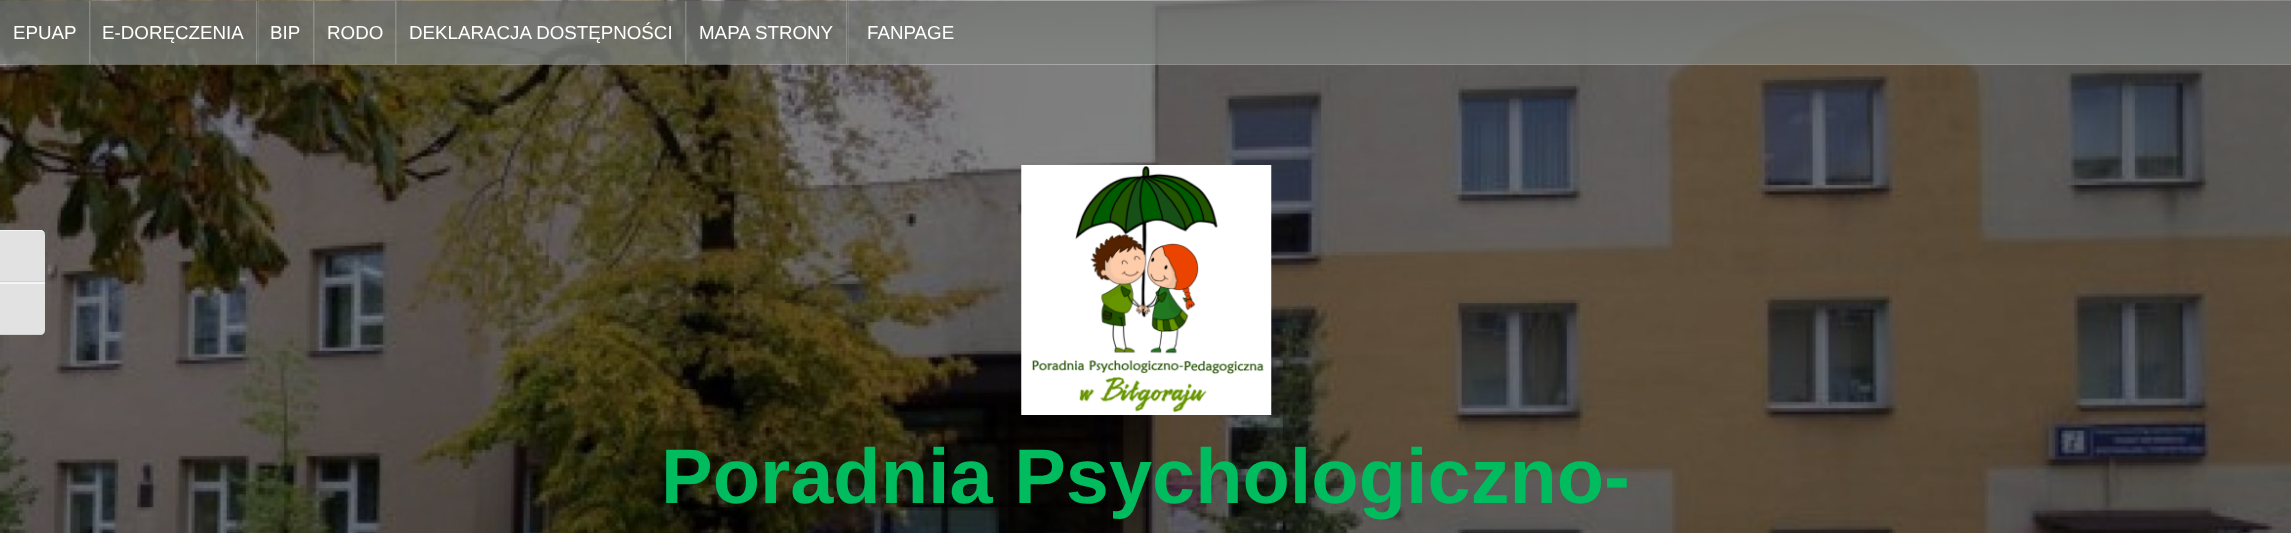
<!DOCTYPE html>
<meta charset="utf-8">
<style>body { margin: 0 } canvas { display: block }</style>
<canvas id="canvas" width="2291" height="533"></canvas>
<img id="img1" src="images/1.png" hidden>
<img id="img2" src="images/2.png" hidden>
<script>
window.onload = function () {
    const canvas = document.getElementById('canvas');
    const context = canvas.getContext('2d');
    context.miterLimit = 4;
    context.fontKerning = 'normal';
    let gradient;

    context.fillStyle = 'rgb(255, 255, 255)';
    context.fillRect(0, 0, 2291, 533);
    context.drawImage(document.getElementById('img1'), 0, 0, 2291, 533);
    context.fillStyle = 'rgba(255, 255, 255, 0.15)';
    context.fillRect(0, 0, 2291, 65);
    context.fillStyle = 'rgba(255, 255, 255, 0.2)';
    context.fillRect(0, 0, 2291, 1);
    context.fillRect(0, 64, 2291, 1);
    gradient = context.createLinearGradient(1146, 1.2, 1146, 64);
    gradient.addColorStop(0, 'rgba(111, 113, 111, 0.75)');
    gradient.addColorStop(1, 'rgba(120, 125, 120, 0.75)');
    context.fillStyle = gradient;
    context.fillRect(0, 1, 2291, 63);
    context.fillStyle = 'rgba(255, 255, 255, 0.1)';
    context.fillRect(90, 1, 1, 63);
    context.fillStyle = 'rgba(181, 185, 182, 0.41)';
    context.fillRect(89, 1, 1, 63);
    context.fillStyle = 'rgba(255, 255, 255, 0.1)';
    context.fillRect(258, 1, 1, 63);
    context.fillStyle = 'rgba(181, 185, 182, 0.41)';
    context.fillRect(256, 1, 1, 63);
    context.fillStyle = 'rgba(255, 255, 255, 0.1)';
    context.fillRect(314, 1, 1, 63);
    context.fillStyle = 'rgba(181, 185, 182, 0.41)';
    context.fillRect(313, 1, 1, 63);
    context.fillStyle = 'rgba(255, 255, 255, 0.1)';
    context.fillRect(396, 1, 1, 63);
    context.fillStyle = 'rgba(181, 185, 182, 0.41)';
    context.fillRect(395, 1, 1, 63);
    context.fillStyle = 'rgba(255, 255, 255, 0.1)';
    context.fillRect(686, 1, 1, 63);
    context.fillStyle = 'rgba(181, 185, 182, 0.41)';
    context.fillRect(685, 1, 1, 63);
    context.fillStyle = 'rgba(255, 255, 255, 0.1)';
    context.fillRect(848, 1, 1, 63);
    context.fillStyle = 'rgba(181, 185, 182, 0.41)';
    context.fillRect(846, 1, 1, 63);
    context.drawImage(document.getElementById('img2'), 1021, 165, 251, 250);
    context.fillStyle = 'rgb(226, 226, 226)';
    context.beginPath();
    context.roundRect(0, 230, 45, 53, [0, 5, 0, 0]);
    context.fill();
    context.fillStyle = 'rgb(245, 245, 245)';
    context.beginPath();
    context.moveTo(0, 230);
    context.lineTo(0, 231);
    context.lineTo(40, 231);
    context.bezierCurveTo(43, 231, 45, 233, 45, 235);
    context.bezierCurveTo(45, 232, 43, 230, 40, 230);
    context.closePath();
    context.fill();
    context.fillStyle = 'rgb(210, 210, 210)';
    context.fillRect(0, 281, 45, 1);
    context.fillStyle = 'rgb(226, 226, 226)';
    context.beginPath();
    context.roundRect(0, 283, 45, 52, [0, 0, 5, 0]);
    context.fill();
    context.fillStyle = 'rgb(245, 245, 245)';
    context.fillRect(0, 282, 45, 2);
    context.fillStyle = 'rgb(210, 210, 210)';
    context.beginPath();
    context.moveTo(0, 334);
    context.lineTo(0, 335);
    context.lineTo(40, 335);
    context.bezierCurveTo(43, 335, 45, 333, 45, 330);
    context.bezierCurveTo(45, 332, 43, 334, 40, 334);
    context.closePath();
    context.fill();
    context.font = '18.75px Liberation Sans';
    context.fillStyle = 'rgb(255, 255, 255)';
    context.fillText('EPUAP', 13, 39);
    context.fillText('E-DORĘCZENIA', 102, 39);
    context.fillText('BIP', 270, 39);
    context.fillText('RODO', 327, 39);
    context.fillText('DEKLARACJA DOSTĘPNOŚCI', 409, 39);
    context.fillText('MAPA STRONY', 699, 39);
    context.fillText('FANPAGE', 867, 39);
    context.font = 'bold 77.5px Liberation Sans';
    context.fillStyle = 'rgb(0, 188, 94)';
    context.fillText('Poradnia Psychologiczno-', 661, 503);
};
</script>
